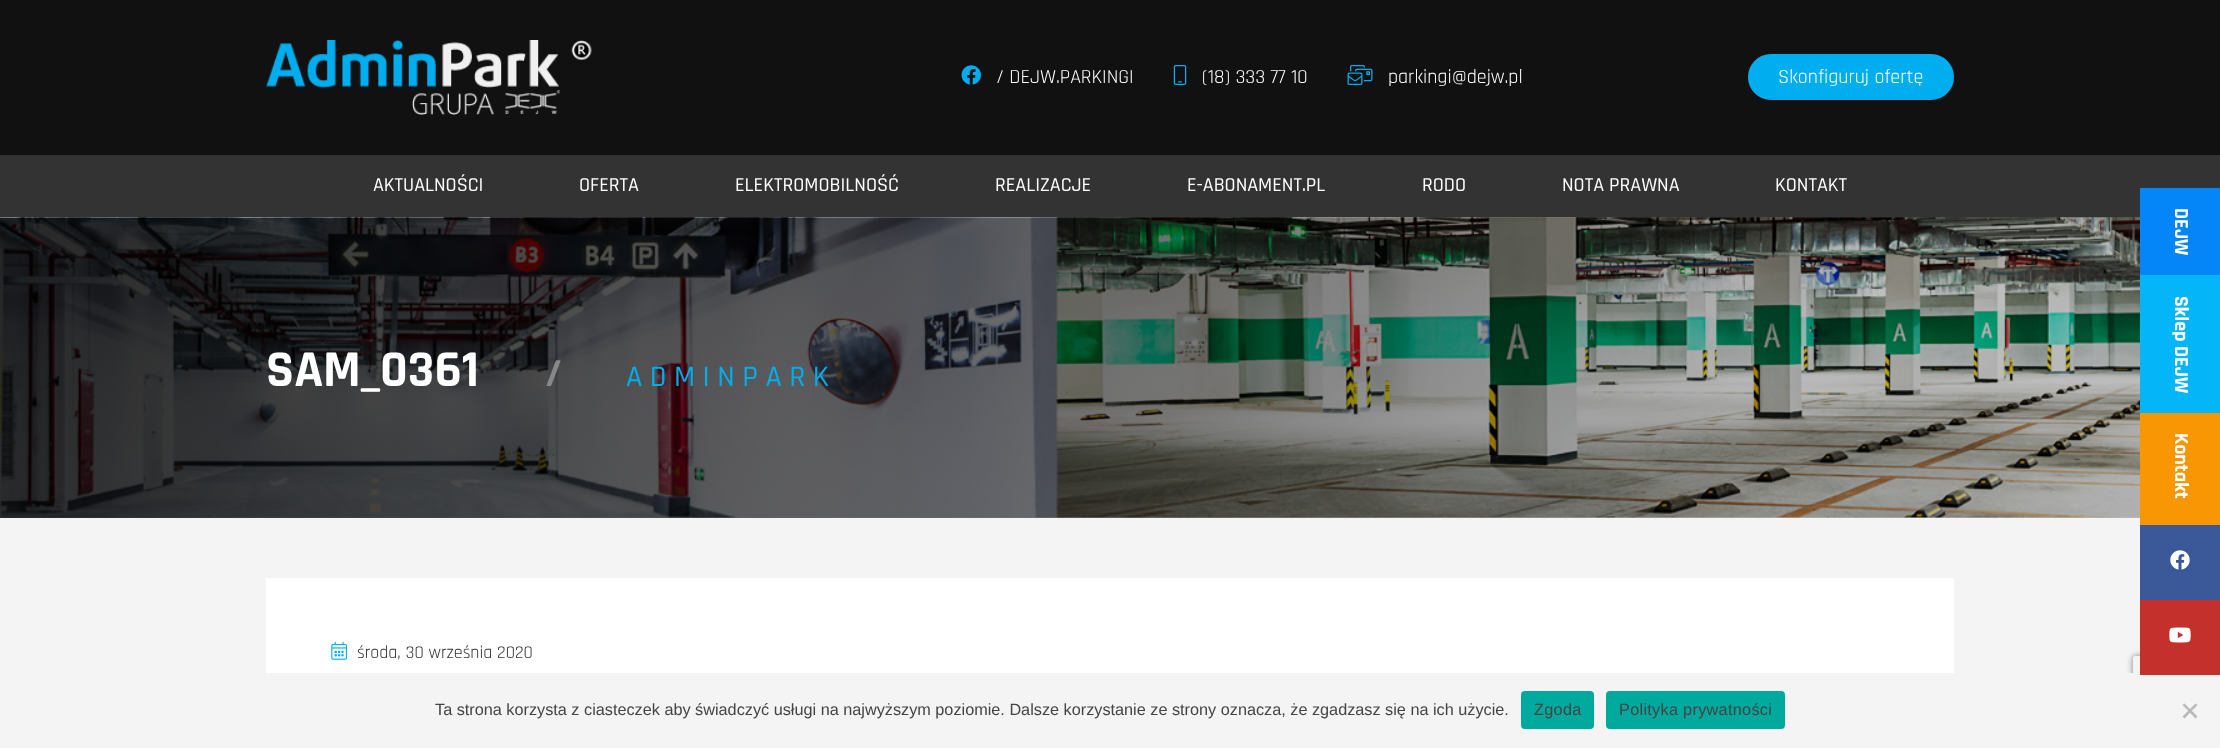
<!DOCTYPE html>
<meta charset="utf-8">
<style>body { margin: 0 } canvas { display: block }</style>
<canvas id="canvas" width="2220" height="748"></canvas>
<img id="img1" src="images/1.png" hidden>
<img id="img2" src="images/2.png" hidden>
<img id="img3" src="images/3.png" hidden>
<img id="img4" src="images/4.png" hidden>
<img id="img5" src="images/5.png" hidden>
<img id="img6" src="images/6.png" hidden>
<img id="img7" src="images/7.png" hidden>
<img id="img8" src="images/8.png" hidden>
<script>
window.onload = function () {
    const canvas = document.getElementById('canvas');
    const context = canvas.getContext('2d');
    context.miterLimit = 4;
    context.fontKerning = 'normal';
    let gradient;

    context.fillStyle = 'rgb(255, 255, 255)';
    context.fillRect(0, 0, 2220, 748);
    context.fillStyle = 'rgb(17, 17, 17)';
    context.fillRect(0, 0, 2220, 155);
    context.drawImage(document.getElementById('img1'), 266, 40, 326, 75);
    context.drawImage(document.getElementById('img2'), 961, 65, 20, 20);
    context.drawImage(document.getElementById('img3'), 1173, 65, 14, 20);
    context.drawImage(document.getElementById('img4'), 1347, 65, 26, 20);
    context.fillStyle = 'rgb(0, 174, 239)';
    context.beginPath();
    context.roundRect(1749.5, 55.5, 203, 43, 21.5);
    context.fill();
    context.strokeStyle = 'rgb(0, 174, 239)';
    context.lineWidth = 3;
    context.stroke();
    context.fillStyle = 'rgb(51, 51, 51)';
    context.fillRect(0, 155, 2220, 63);
    context.fillStyle = 'rgb(4, 134, 248)';
    context.fillRect(2140, 188, 80, 87);
    context.fillStyle = 'rgb(4, 181, 248)';
    context.fillRect(2140, 275, 80, 138);
    context.fillStyle = 'rgb(248, 150, 4)';
    context.fillRect(2140, 413, 80, 112);
    context.fillStyle = 'rgb(59, 89, 152)';
    context.fillRect(2140, 525, 80, 75);
    context.drawImage(document.getElementById('img5'), 2170, 550, 20, 20);
    context.fillStyle = 'rgb(244, 244, 244)';
    context.fillRect(0, 518, 2140, 155);
    context.save();
    context.beginPath();
    context.moveTo(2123, 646);
    context.lineTo(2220, 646);
    context.lineTo(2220, 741);
    context.lineTo(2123, 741);
    context.closePath();
    context.moveTo(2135.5, 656);
    context.lineTo(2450.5, 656);
    context.bezierCurveTo(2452, 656, 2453, 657, 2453, 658.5);
    context.lineTo(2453, 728.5);
    context.bezierCurveTo(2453, 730, 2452, 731, 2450.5, 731);
    context.lineTo(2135.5, 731);
    context.bezierCurveTo(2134, 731, 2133, 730, 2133, 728.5);
    context.lineTo(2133, 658.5);
    context.bezierCurveTo(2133, 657, 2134, 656, 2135.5, 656);
    context.closePath();
    context.clip('evenodd');
    context.fillStyle = 'rgb(128, 128, 128)';
    context.filter = 'blur(3px)';
    context.beginPath();
    context.roundRect(2133, 656, 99, 75, 2.5);
    context.fill();
    context.filter = 'none';
    context.restore();
    context.fillRect(0, 673, 2220, 75);
    context.fillStyle = 'rgb(196, 48, 43)';
    context.fillRect(2140, 600, 80, 75);
    context.drawImage(document.getElementById('img6'), 2169, 627, 22, 16);
    context.drawImage(document.getElementById('img7'), 0, 217, 2140, 301);
    gradient = context.createLinearGradient(213, -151, 2007, 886);
    gradient.addColorStop(0, 'rgba(0, 0, 0, 0.85)');
    gradient.addColorStop(0.5, 'rgba(0, 0, 0, 0.55)');
    gradient.addColorStop(0.8, 'rgba(0, 0, 0, 0.25)');
    context.fillStyle = gradient;
    context.fillRect(0, 218, 2140, 300);
    context.fillStyle = 'rgb(255, 255, 255)';
    context.fillRect(266, 578, 1688, 95);
    context.drawImage(document.getElementById('img8'), 331, 641, 16, 19);
    context.fillStyle = 'rgb(0, 169, 157)';
    context.beginPath();
    context.roundRect(1521, 691, 73, 38, 4);
    context.fill();
    context.beginPath();
    context.roundRect(1606, 691, 179, 38, 4);
    context.fill();
    context.fillStyle = 'rgb(186, 186, 186)';
    context.beginPath();
    context.moveTo(2195.5, 703.5);
    context.lineTo(2197.5, 705);
    context.lineTo(2184.5, 718.5);
    context.lineTo(2182.5, 716.5);
    context.closePath();
    context.fill();
    context.beginPath();
    context.moveTo(2182.5, 705);
    context.lineTo(2184.5, 703.5);
    context.lineTo(2197.5, 716.5);
    context.lineTo(2195.5, 718.5);
    context.closePath();
    context.fill();
    context.font = '20px Rajdhani';
    context.fillStyle = 'rgb(255, 255, 255)';
    context.fillText('/ DEJW.PARKINGI', 996, 83);
    context.fillText('(18) 333 77 10', 1202, 83);
    context.fillText('parkingi@dejw.pl', 1388, 83);
    context.fillText('Skonfiguruj ofertę', 1778, 83);
    context.font = 'bold 20px Rajdhani';
    context.save();
    context.translate(2175, 208);
    context.rotate(90 * Math.PI / 180);
    context.fillText('DEJW', 0, 0);
    context.restore();
    context.save();
    context.translate(2175, 296);
    context.rotate(90 * Math.PI / 180);
    context.fillText('Sklep DEJW', 0, 0);
    context.restore();
    context.save();
    context.translate(2175, 433);
    context.rotate(90 * Math.PI / 180);
    context.fillText('Kontakt', 0, 0);
    context.restore();
    context.font = '500 20px Rajdhani';
    context.fillText('AKTUALNOŚCI', 373, 191);
    context.fillText('OFERTA', 579, 191);
    context.fillText('ELEKTROMOBILNOŚĆ', 735, 191);
    context.fillText('REALIZACJE', 995, 191);
    context.fillText('E-ABONAMENT.PL', 1187, 191);
    context.fillText('RODO', 1422, 191);
    context.fillText('NOTA PRAWNA', 1562, 191);
    context.fillText('KONTAKT', 1775, 191);
    context.font = 'bold 52px Rajdhani';
    context.fillText('SAM_0361', 266, 386);
    context.font = 'bold 40px Rajdhani';
    context.fillStyle = 'rgb(136, 136, 136)';
    context.fillText('/', 545, 386);
    context.letterSpacing = '7.5px';
    context.font = '500 30px Rajdhani';
    context.fillStyle = 'rgb(0, 174, 239)';
    context.fillText('ADMINPARK', 626, 386);
    context.letterSpacing = '0px';
    context.font = '18px Rajdhani';
    context.fillStyle = 'rgb(51, 51, 51)';
    context.fillText('środa, 30 września 2020', 357, 658);
    context.font = '16.25px Liberation Sans';
    context.fillStyle = 'rgb(68, 68, 68)';
    context.fillText('Ta strona korzysta z ciasteczek aby świadczyć usługi na najwyższym poziomie. Dalsze korzystanie ze strony oznacza, że zgadzasz się na ich użycie.', 435, 715);
    context.letterSpacing = '0.3px';
    context.fillText('Zgoda', 1534, 715);
    context.fillText('Polityka prywatności', 1619, 715);
};
</script>
